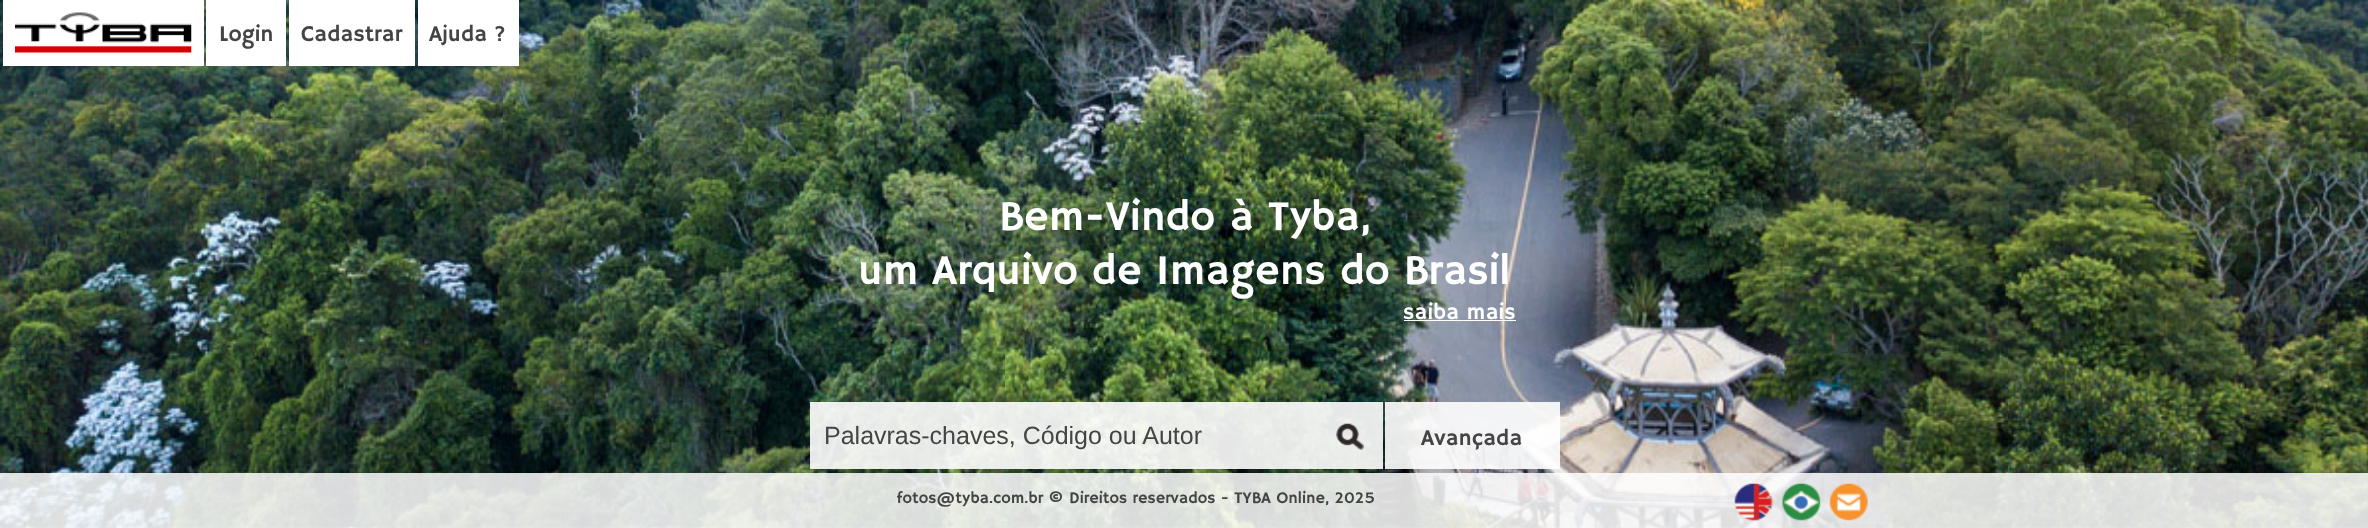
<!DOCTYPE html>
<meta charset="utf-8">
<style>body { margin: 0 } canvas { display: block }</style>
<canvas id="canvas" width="2368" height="528"></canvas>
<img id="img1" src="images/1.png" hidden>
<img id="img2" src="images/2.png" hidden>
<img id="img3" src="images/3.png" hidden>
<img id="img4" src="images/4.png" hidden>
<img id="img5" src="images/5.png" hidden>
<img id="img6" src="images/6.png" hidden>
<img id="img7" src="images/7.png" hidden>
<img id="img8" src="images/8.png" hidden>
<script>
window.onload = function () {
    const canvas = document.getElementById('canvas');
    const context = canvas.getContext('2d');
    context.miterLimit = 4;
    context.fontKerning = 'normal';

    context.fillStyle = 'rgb(255, 255, 255)';
    context.fillRect(0, 0, 2368, 528);
    context.drawImage(document.getElementById('img1'), 0, 0, 2368, 528);
    context.fillRect(3, 0, 201, 66);
    context.drawImage(document.getElementById('img2'), 15, 12, 177, 41);
    context.fillRect(206, 0, 80, 66);
    context.fillRect(289, 0, 126, 66);
    context.fillRect(418, 0, 101, 66);
    context.fillRect(1404, 320, 112, 1);
    context.fillStyle = 'rgba(255, 255, 255, 0.9)';
    context.fillRect(810, 402, 573, 67);
    context.drawImage(document.getElementById('img3'), 1336, 423, 28, 27);
    context.fillRect(1385, 402, 175, 67);
    context.drawImage(document.getElementById('img4'), 119, 267, 38, 57);
    context.drawImage(document.getElementById('img5'), 2212, 267, 37, 57);
    context.fillStyle = 'rgba(255, 255, 255, 0.85)';
    context.fillRect(0, 473, 2368, 55);
    context.drawImage(document.getElementById('img6'), 1734, 483, 39, 38);
    context.drawImage(document.getElementById('img7'), 1781, 483, 40, 38);
    context.drawImage(document.getElementById('img8'), 1829, 483, 39, 38);
    context.font = '22.5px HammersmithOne';
    context.fillStyle = 'rgb(68, 68, 68)';
    context.fillText('Login', 219, 41);
    context.fillText('Cadastrar', 301, 41);
    context.fillText('Ajuda ?', 429, 41);
    context.font = '42.5px HammersmithOne';
    context.fillStyle = 'rgb(255, 255, 255)';
    context.fillText('Bem-Vindo à Tyba,', 999, 230);
    context.fillText('um Arquivo de Imagens do Brasil', 858, 284);
    context.font = '22.5px HammersmithOne';
    context.fillText('saiba mais', 1403, 319);
    context.font = '25px Liberation Sans';
    context.fillStyle = 'rgb(68, 68, 68)';
    context.fillText('Palavras-chaves, Código ou Autor', 824, 444);
    context.font = '22.5px HammersmithOne';
    context.fillText('Avançada', 1421, 445);
    context.font = '16.25px HammersmithOne';
    context.fillText('fotos@tyba.com.br © Direitos reservados - TYBA Online, 2025', 897, 503);
};
</script>
